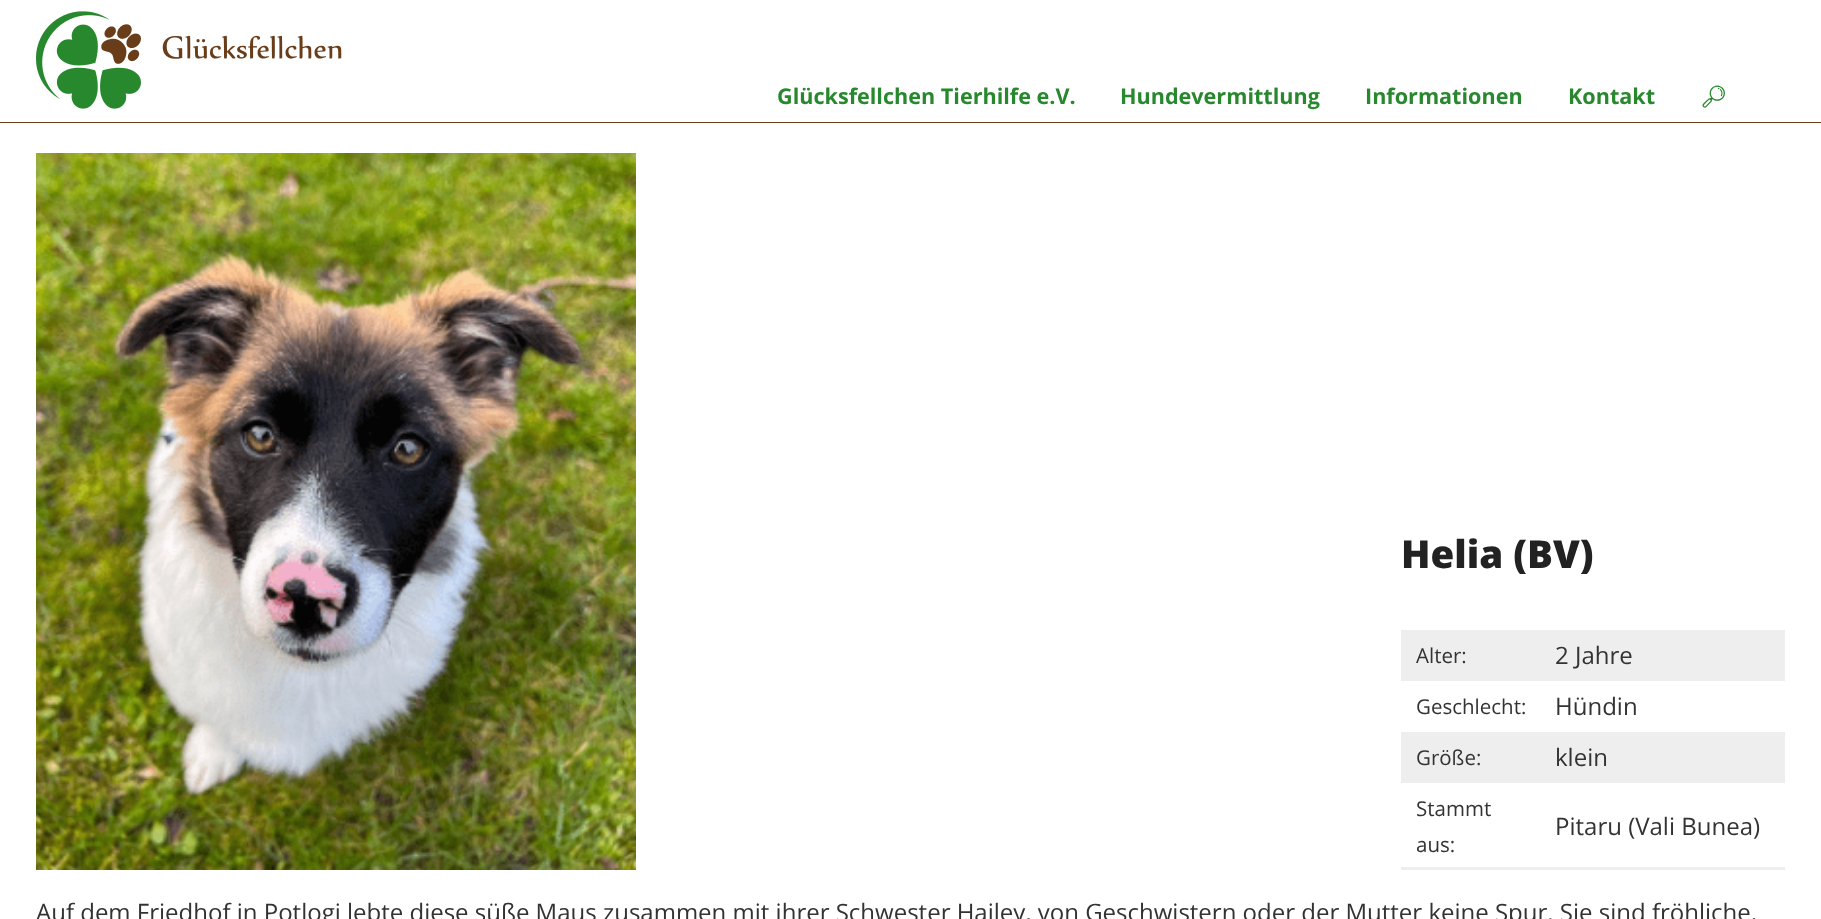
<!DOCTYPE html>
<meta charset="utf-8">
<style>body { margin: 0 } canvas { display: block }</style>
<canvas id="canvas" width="1821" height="919"></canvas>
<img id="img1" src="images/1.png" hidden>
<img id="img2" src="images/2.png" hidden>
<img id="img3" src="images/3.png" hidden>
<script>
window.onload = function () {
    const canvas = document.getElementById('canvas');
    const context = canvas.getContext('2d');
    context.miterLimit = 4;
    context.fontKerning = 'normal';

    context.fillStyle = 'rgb(255, 255, 255)';
    context.fillRect(0, 0, 1821, 919);
    context.fillStyle = 'rgb(105, 61, 26)';
    context.fillRect(0, 122, 1821, 1);
    context.drawImage(document.getElementById('img1'), 36, 11, 105, 98);
    context.drawImage(document.getElementById('img2'), 162, 35, 180, 24);
    context.drawImage(document.getElementById('img3'), 36, 153, 600, 717);
    context.fillStyle = 'rgb(238, 238, 238)';
    context.fillRect(1401, 630, 384, 51);
    context.fillRect(1401, 732, 384, 51);
    context.fillRect(1401, 867, 384, 3);
    context.font = 'bold 21.6px Open Sans';
    context.fillStyle = 'rgb(40, 136, 46)';
    context.fillText('Glücksfellchen Tierhilfe e.V.', 777, 104);
    context.fillText('Hundevermittlung', 1120, 104);
    context.fillText('Informationen', 1365, 104);
    context.fillText('Kontakt', 1568, 104);
    context.font = 'bold 21.6px Noto Emoji';
    context.fillText('🔎︎', 1700, 104);
    context.font = '800 38.5px Open Sans';
    context.fillStyle = 'rgb(34, 34, 34)';
    context.fillText('Helia (BV)', 1401, 568);
    context.font = '20.5px Open Sans';
    context.fillStyle = 'rgb(51, 51, 51)';
    context.fillText('Alter:', 1416, 663);
    context.font = '24px Open Sans';
    context.fillText('2 Jahre', 1555, 664);
    context.font = '20.5px Open Sans';
    context.fillText('Geschlecht:', 1416, 714);
    context.font = '24px Open Sans';
    context.fillText('Hündin', 1555, 715);
    context.font = '20.5px Open Sans';
    context.fillText('Größe:', 1416, 765);
    context.font = '24px Open Sans';
    context.fillText('klein', 1555, 766);
    context.font = '20.5px Open Sans';
    context.fillText('Stammt', 1416, 816);
    context.fillText('aus:', 1416, 852);
    context.font = '24px Open Sans';
    context.fillText('Pitaru (Vali Bunea)', 1555, 835);
    context.fillText('Auf dem Friedhof in Potlogi lebte diese süße Maus zusammen mit ihrer Schwester Hailey, von Geschwistern oder der Mutter keine Spur. Sie sind fröhliche,', 36, 921);
};
</script>
